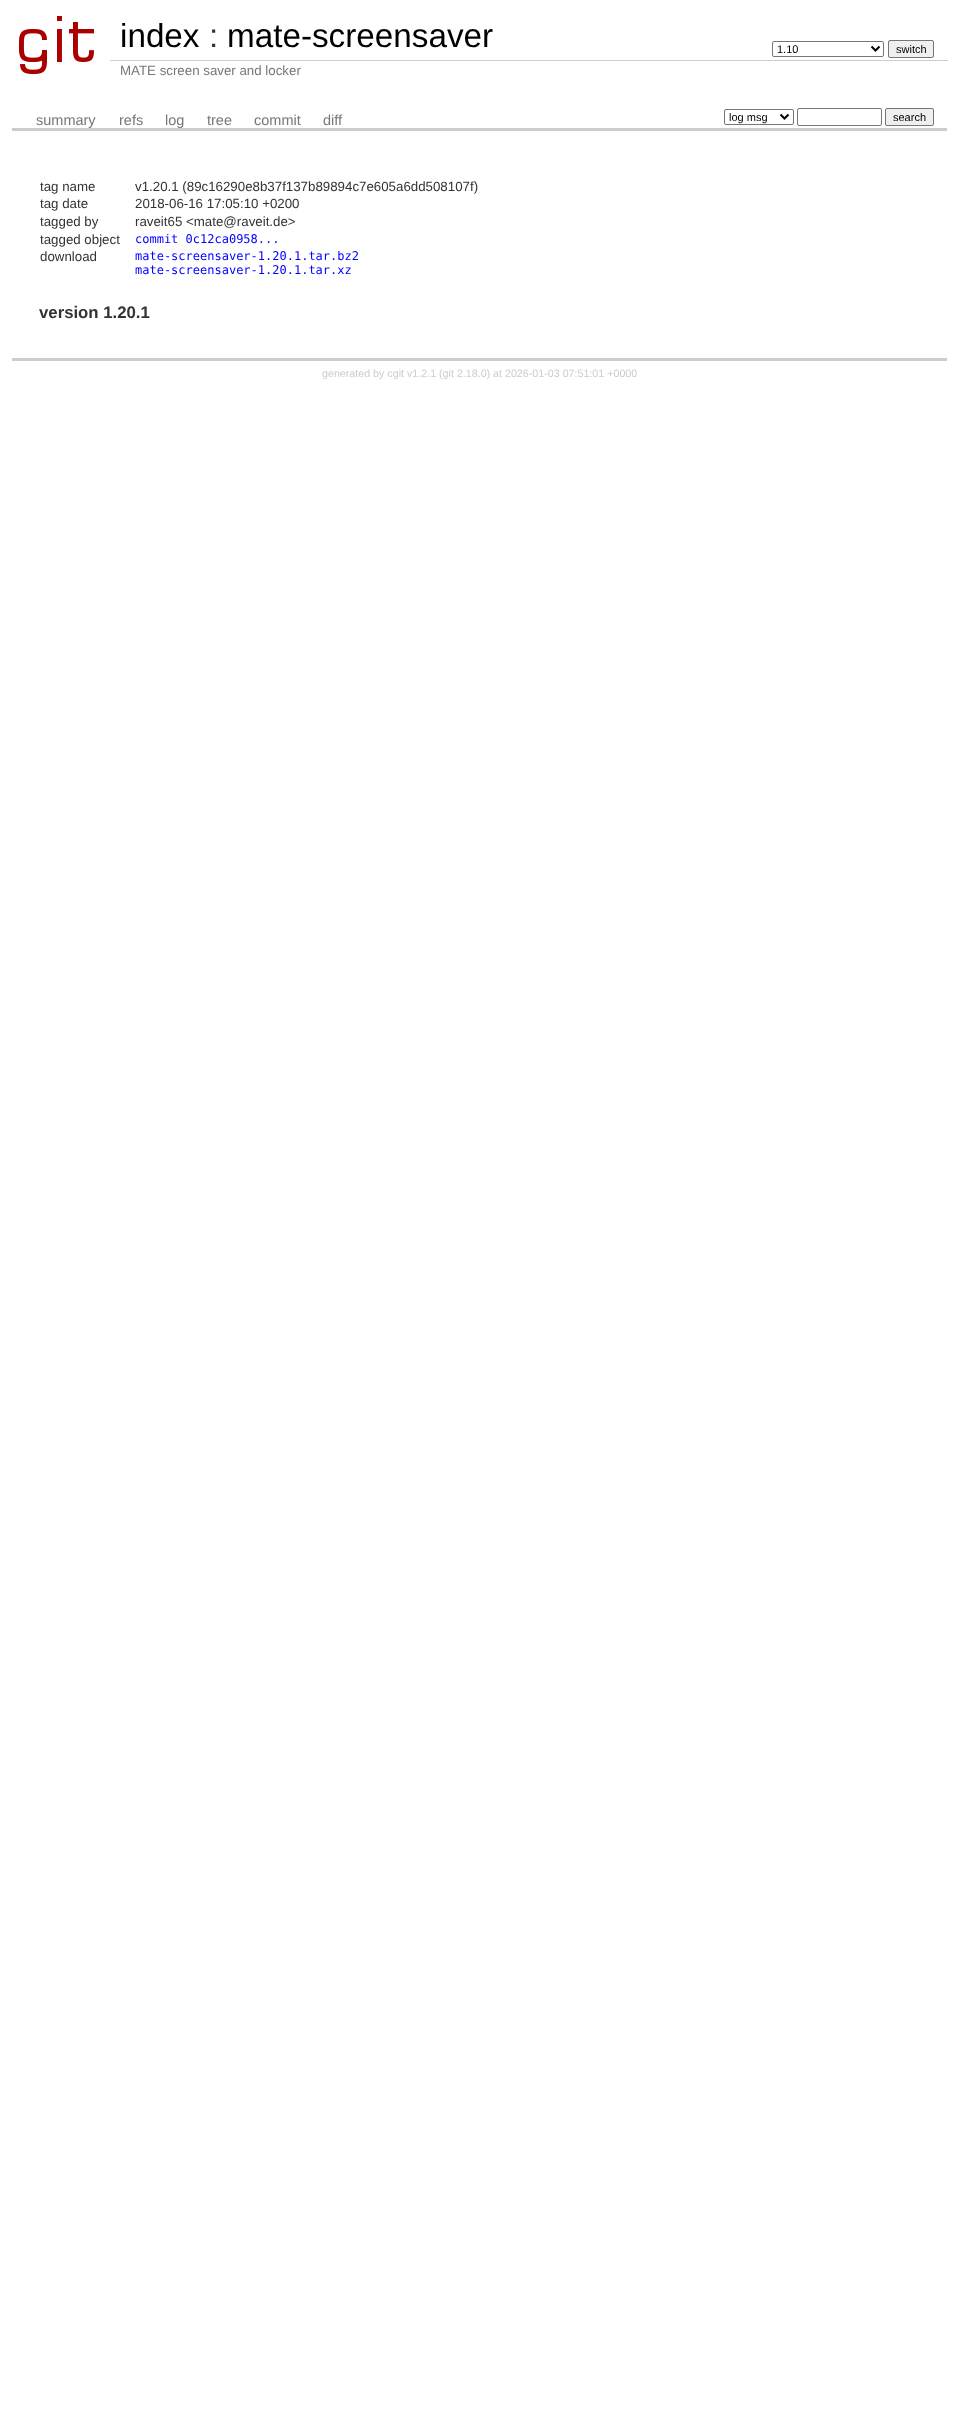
<!DOCTYPE html>
<meta charset="utf-8">
<style>body { margin: 0 } canvas { display: block }</style>
<canvas id="canvas" width="959" height="2428"></canvas>
<img id="img1" src="images/1.png" hidden>
<script>
window.onload = function () {
    const canvas = document.getElementById('canvas');
    const context = canvas.getContext('2d');
    context.miterLimit = 4;
    context.fontKerning = 'normal';

    context.fillStyle = 'rgb(255, 255, 255)';
    context.fillRect(0, 0, 959, 2428);
    context.drawImage(document.getElementById('img1'), 19, 16, 75, 58);
    context.beginPath();
    context.roundRect(772.5, 41.5, 111, 15, 1.5);
    context.strokeStyle = 'rgb(118, 118, 118)';
    context.stroke();
    context.beginPath();
    context.moveTo(871.5, 46.5);
    context.lineTo(875.5, 50.5);
    context.lineTo(879.5, 46.5);
    context.strokeStyle = 'rgb(0, 0, 0)';
    context.lineWidth = 2;
    context.stroke();
    context.fillStyle = 'rgb(239, 239, 239)';
    context.beginPath();
    context.roundRect(888.5, 40.5, 45, 17, 1.5);
    context.fill();
    context.strokeStyle = 'rgb(118, 118, 118)';
    context.lineWidth = 1;
    context.stroke();
    context.fillStyle = 'rgb(204, 204, 204)';
    context.fillRect(110, 60, 838, 1);
    context.fillRect(12, 128, 935, 3);
    context.beginPath();
    context.roundRect(724.5, 109.5, 69, 15, 1.5);
    context.stroke();
    context.beginPath();
    context.moveTo(780.5, 114.5);
    context.lineTo(784.5, 118.5);
    context.lineTo(788.5, 114.5);
    context.strokeStyle = 'rgb(0, 0, 0)';
    context.lineWidth = 2;
    context.stroke();
    context.beginPath();
    context.roundRect(797.5, 108.5, 84, 17, 1.5);
    context.strokeStyle = 'rgb(118, 118, 118)';
    context.lineWidth = 1;
    context.stroke();
    context.fillStyle = 'rgb(239, 239, 239)';
    context.beginPath();
    context.roundRect(885.5, 108.5, 48, 17, 1.5);
    context.fill();
    context.stroke();
    context.fillStyle = 'rgb(204, 204, 204)';
    context.fillRect(12, 358, 935, 3);
    context.font = '33.25px Liberation Sans';
    context.fillStyle = 'rgb(0, 0, 0)';
    context.fillText('index', 120, 47);
    context.fillStyle = 'rgb(51, 51, 51)';
    context.fillText(':', 209, 47);
    context.fillStyle = 'rgb(0, 0, 0)';
    context.fillText('mate-screensaver', 227, 47);
    context.font = '11px Liberation Sans';
    context.fillText('1.10', 777, 53);
    context.fillText('switch', 896, 53);
    context.font = '13.3px Liberation Sans';
    context.fillStyle = 'rgb(119, 119, 119)';
    context.fillText('MATE screen saver and locker', 120, 75);
    context.font = '14.5px Liberation Sans';
    context.fillText('summary', 36, 125);
    context.fillText('refs', 119, 125);
    context.fillText('log', 165, 125);
    context.fillText('tree', 207, 125);
    context.fillText('commit', 254, 125);
    context.fillText('diff', 323, 125);
    context.font = '11px Liberation Sans';
    context.fillStyle = 'rgb(0, 0, 0)';
    context.fillText('log msg', 729, 121);
    context.fillText('search', 893, 121);
    context.font = '13.3px Liberation Sans';
    context.fillStyle = 'rgb(51, 51, 51)';
    context.fillText('tag name', 40, 191);
    context.fillText('v1.20.1 (89c16290e8b37f137b89894c7e605a6dd508107f)', 135, 191);
    context.fillText('tag date', 40, 208);
    context.fillText('2018-06-16 17:05:10 +0200', 135, 208);
    context.fillText('tagged by', 40, 226);
    context.fillText('raveit65 <mate@raveit.de>', 135, 226);
    context.fillText('tagged object', 40, 244);
    context.font = '12px DejaVu Sans Mono';
    context.fillStyle = 'rgb(0, 0, 255)';
    context.fillText('commit 0c12ca0958...', 135, 243);
    context.font = '13.3px Liberation Sans';
    context.fillStyle = 'rgb(51, 51, 51)';
    context.fillText('download', 40, 261);
    context.font = '12px DejaVu Sans Mono';
    context.fillStyle = 'rgb(0, 0, 255)';
    context.fillText('mate-screensaver-1.20.1.tar.bz2', 135, 260);
    context.fillText('mate-screensaver-1.20.1.tar.xz', 135, 274);
    context.font = 'bold 16.75px Liberation Sans';
    context.fillStyle = 'rgb(51, 51, 51)';
    context.fillText('version 1.20.1', 39, 318);
    context.font = '10.7px Liberation Sans';
    context.fillStyle = 'rgb(204, 204, 204)';
    context.fillText('generated by cgit v1.2.1 (git 2.18.0) at 2026-01-03 07:51:01 +0000', 322, 377);
};
</script>
